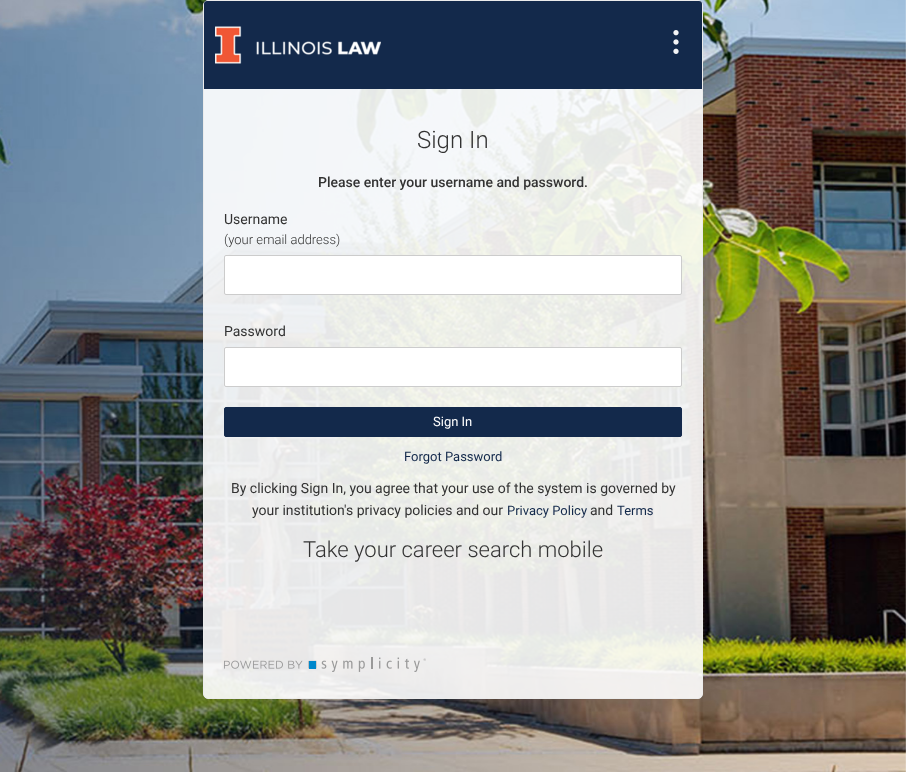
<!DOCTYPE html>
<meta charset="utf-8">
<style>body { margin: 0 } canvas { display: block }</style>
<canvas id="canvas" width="906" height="772"></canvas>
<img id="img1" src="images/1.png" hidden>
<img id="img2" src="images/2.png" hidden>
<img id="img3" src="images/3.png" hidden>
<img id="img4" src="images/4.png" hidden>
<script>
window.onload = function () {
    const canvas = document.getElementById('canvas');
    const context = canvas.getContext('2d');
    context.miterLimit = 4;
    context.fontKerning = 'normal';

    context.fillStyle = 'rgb(255, 255, 255)';
    context.fillRect(0, 0, 906, 772);
    context.drawImage(document.getElementById('img1'), 0, 0, 906, 772);
    context.fillStyle = 'rgba(255, 255, 255, 0.9)';
    context.beginPath();
    context.roundRect(203.5, 0.5, 499, 698, 4.5);
    context.fill();
    context.strokeStyle = 'rgb(236, 236, 236)';
    context.stroke();
    context.fillStyle = 'rgb(19, 41, 75)';
    context.beginPath();
    context.roundRect(204, 1, 498, 88, [3, 3, 0, 0]);
    context.fill();
    context.drawImage(document.getElementById('img2'), 215, 26, 166, 38);
    context.drawImage(document.getElementById('img3'), 673, 30, 6, 24);
    context.fillStyle = 'rgb(255, 255, 255)';
    context.beginPath();
    context.roundRect(224.5, 255.5, 457, 39, 1.5);
    context.fill();
    context.strokeStyle = 'rgb(204, 204, 204)';
    context.stroke();
    context.beginPath();
    context.roundRect(224.5, 347.5, 457, 39, 1.5);
    context.fill();
    context.stroke();
    context.fillStyle = 'rgb(19, 41, 75)';
    context.beginPath();
    context.roundRect(224.5, 407.5, 457, 29, 1.5);
    context.fill();
    context.strokeStyle = 'rgb(19, 41, 75)';
    context.stroke();
    context.drawImage(document.getElementById('img4'), 224, 657, 202, 15);
    context.font = '300 24px Roboto';
    context.fillStyle = 'rgb(51, 51, 51)';
    context.fillText('Sign In', 417, 148);
    context.font = '500 14px Roboto';
    context.fillText('Please enter your username and password.', 318, 187);
    context.font = '14px Roboto';
    context.fillText('Username', 224, 224);
    context.font = '300 13px Roboto';
    context.fillText('(your email address)', 224, 244);
    context.font = '14px Roboto';
    context.fillText('Password', 224, 336);
    context.font = '13px Roboto';
    context.fillStyle = 'rgb(255, 255, 255)';
    context.fillText('Sign In', 433, 426);
    context.fillStyle = 'rgb(19, 41, 75)';
    context.fillText('Forgot Password', 404, 461);
    context.font = '14px Roboto';
    context.fillStyle = 'rgb(51, 51, 51)';
    context.fillText('By clicking Sign In, you agree that your use of the system is governed by', 231, 493);
    context.fillText('your institution\'s privacy policies and our', 252, 515);
    context.font = '13px Roboto';
    context.fillStyle = 'rgb(19, 41, 75)';
    context.fillText('Privacy Policy', 507, 515);
    context.font = '14px Roboto';
    context.fillStyle = 'rgb(51, 51, 51)';
    context.fillText('and', 590, 515);
    context.font = '13px Roboto';
    context.fillStyle = 'rgb(19, 41, 75)';
    context.fillText('Terms', 617, 515);
    context.font = '300 22px Roboto';
    context.fillStyle = 'rgb(51, 51, 51)';
    context.fillText('Take your career search mobile', 303, 557);
};
</script>
